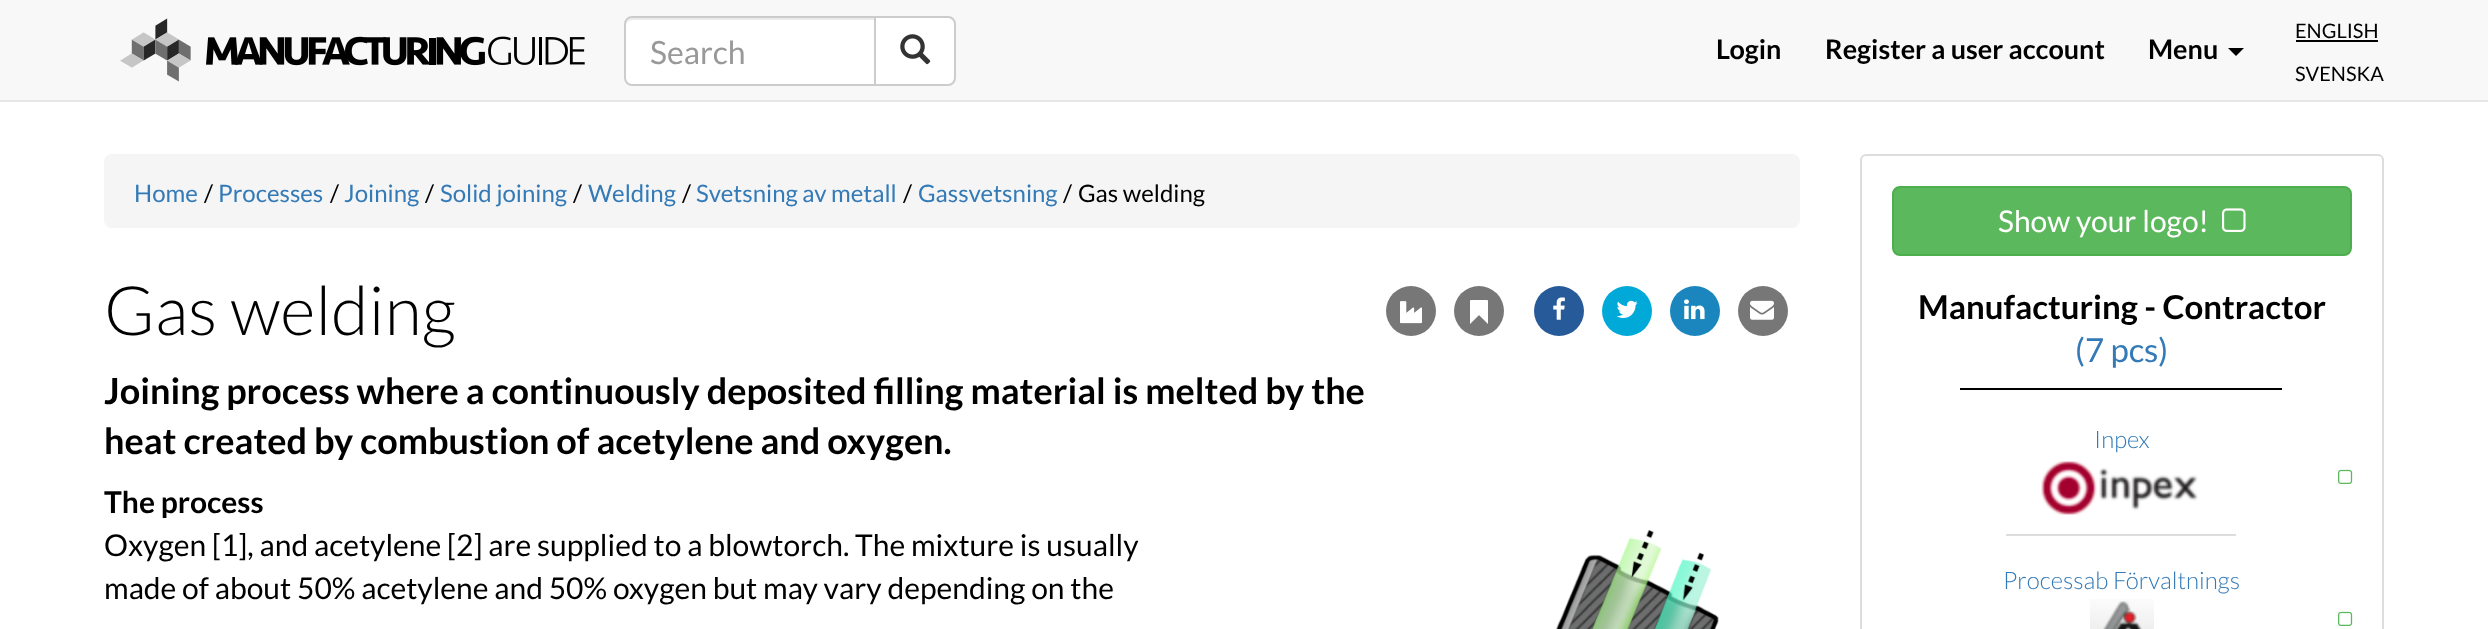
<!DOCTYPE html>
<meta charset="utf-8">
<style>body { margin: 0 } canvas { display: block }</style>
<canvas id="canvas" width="2488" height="629"></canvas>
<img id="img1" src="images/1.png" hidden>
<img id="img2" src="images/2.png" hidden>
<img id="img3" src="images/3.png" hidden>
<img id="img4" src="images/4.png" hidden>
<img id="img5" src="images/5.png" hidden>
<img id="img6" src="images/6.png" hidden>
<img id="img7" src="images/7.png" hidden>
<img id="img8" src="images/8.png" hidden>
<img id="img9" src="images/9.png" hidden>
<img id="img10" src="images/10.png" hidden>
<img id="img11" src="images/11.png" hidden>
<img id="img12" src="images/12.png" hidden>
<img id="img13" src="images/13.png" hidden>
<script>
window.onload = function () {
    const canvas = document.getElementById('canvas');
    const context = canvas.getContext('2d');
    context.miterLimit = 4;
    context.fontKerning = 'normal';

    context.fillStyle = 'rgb(255, 255, 255)';
    context.fillRect(0, 0, 2488, 629);
    context.fillStyle = 'rgb(248, 248, 248)';
    context.fillRect(0, 0, 2488, 100);
    context.fillStyle = 'rgb(231, 231, 231)';
    context.fillRect(0, 100, 2488, 2);
    context.drawImage(document.getElementById('img1'), 120, 18, 465, 64);
    context.fillStyle = 'rgb(255, 255, 255)';
    context.beginPath();
    context.roundRect(624, 16, 252, 70, [8, 0, 0, 8]);
    context.fill();
    context.fillStyle = 'rgb(236, 236, 236)';
    context.beginPath();
    context.moveTo(632, 20);
    context.lineTo(874, 20);
    context.lineTo(874, 18);
    context.lineTo(632, 18);
    context.bezierCurveTo(629, 18, 626, 21, 626, 24);
    context.lineTo(626, 26);
    context.bezierCurveTo(626, 23, 629, 20, 632, 20);
    context.closePath();
    context.fill();
    context.beginPath();
    context.roundRect(625, 17, 250, 68, [7, 0, 0, 7]);
    context.strokeStyle = 'rgb(204, 204, 204)';
    context.lineWidth = 2;
    context.stroke();
    context.fillStyle = 'rgb(255, 255, 255)';
    context.beginPath();
    context.roundRect(875, 17, 80, 68, [0, 7, 7, 0]);
    context.fill();
    context.stroke();
    context.drawImage(document.getElementById('img2'), 900, 34, 31, 31);
    context.fillStyle = 'rgb(0, 0, 0)';
    context.beginPath();
    context.moveTo(2228, 48);
    context.lineTo(2244, 48);
    context.lineTo(2236, 56);
    context.closePath();
    context.fill();
    context.fillRect(2296, 40, 82, 2);
    context.fillStyle = 'rgb(245, 245, 245)';
    context.beginPath();
    context.roundRect(104, 154, 1696, 74, 8);
    context.fill();
    context.fillStyle = 'rgb(119, 119, 119)';
    context.beginPath();
    context.arc(1411, 311, 25, 0, 2 * Math.PI);
    context.fill();
    context.drawImage(document.getElementById('img3'), 1400, 301, 22, 23);
    context.beginPath();
    context.arc(1479, 311, 25, 0, 2 * Math.PI);
    context.fill();
    context.drawImage(document.getElementById('img4'), 1470, 300, 18, 24);
    context.fillStyle = 'rgb(38, 90, 153)';
    context.beginPath();
    context.arc(1559, 311, 25, 0, 2 * Math.PI);
    context.fill();
    context.drawImage(document.getElementById('img5'), 1553, 297, 12, 23);
    context.fillStyle = 'rgb(0, 169, 216)';
    context.beginPath();
    context.arc(1627, 311, 25, 0, 2 * Math.PI);
    context.fill();
    context.drawImage(document.getElementById('img6'), 1616, 300, 22, 18);
    context.fillStyle = 'rgb(27, 134, 189)';
    context.beginPath();
    context.arc(1695, 311, 25, 0, 2 * Math.PI);
    context.fill();
    context.drawImage(document.getElementById('img7'), 1684, 299, 21, 21);
    context.fillStyle = 'rgb(119, 119, 119)';
    context.beginPath();
    context.arc(1763, 311, 25, 0, 2 * Math.PI);
    context.fill();
    context.drawImage(document.getElementById('img8'), 1750, 300, 24, 20);
    context.drawImage(document.getElementById('img9'), 1555, 530, 164, 99);
    context.beginPath();
    context.roundRect(1861, 155, 522, 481, 5);
    context.strokeStyle = 'rgb(221, 221, 221)';
    context.stroke();
    context.fillStyle = 'rgb(92, 184, 92)';
    context.beginPath();
    context.roundRect(1893, 187, 458, 68, 7);
    context.fill();
    context.strokeStyle = 'rgb(76, 174, 76)';
    context.stroke();
    context.drawImage(document.getElementById('img10'), 2222, 208, 24, 24);
    context.fillStyle = 'rgb(0, 0, 0)';
    context.fillRect(1960, 388, 322, 2);
    context.drawImage(document.getElementById('img11'), 2041, 461, 157, 54);
    context.fillStyle = 'rgb(221, 221, 221)';
    context.fillRect(2006, 534, 230, 2);
    context.drawImage(document.getElementById('img12'), 2338, 469, 15, 15);
    context.drawImage(document.getElementById('img13'), 2090, 599, 64, 30);
    context.drawImage(document.getElementById('img12'), 2338, 611, 15, 15);
    context.font = '32px Lato';
    context.fillStyle = 'rgb(153, 153, 153)';
    context.fillText('Search', 650, 64);
    context.font = 'bold 27px Lato';
    context.fillStyle = 'rgb(0, 0, 0)';
    context.fillText('Login', 1716, 59);
    context.fillText('Register a user account', 1825, 59);
    context.fillText('Menu', 2148, 59);
    context.font = '20px Lato';
    context.fillText('ENGLISH', 2295, 38);
    context.fillText('SVENSKA', 2295, 81);
    context.font = '24px Lato';
    context.fillStyle = 'rgb(51, 122, 183)';
    context.fillText('Home', 134, 202);
    context.fillStyle = 'rgb(0, 0, 0)';
    context.fillText('/', 204, 202);
    context.fillStyle = 'rgb(51, 122, 183)';
    context.fillText('Processes', 218, 202);
    context.fillStyle = 'rgb(0, 0, 0)';
    context.fillText('/', 330, 202);
    context.fillStyle = 'rgb(51, 122, 183)';
    context.fillText('Joining', 344, 202);
    context.fillStyle = 'rgb(0, 0, 0)';
    context.fillText('/', 425, 202);
    context.fillStyle = 'rgb(51, 122, 183)';
    context.fillText('Solid joining', 440, 202);
    context.fillStyle = 'rgb(0, 0, 0)';
    context.fillText('/', 573, 202);
    context.fillStyle = 'rgb(51, 122, 183)';
    context.fillText('Welding', 588, 202);
    context.fillStyle = 'rgb(0, 0, 0)';
    context.fillText('/', 682, 202);
    context.fillStyle = 'rgb(51, 122, 183)';
    context.fillText('Svetsning av metall', 696, 202);
    context.fillStyle = 'rgb(0, 0, 0)';
    context.fillText('/', 903, 202);
    context.fillStyle = 'rgb(51, 122, 183)';
    context.fillText('Gassvetsning', 918, 202);
    context.fillStyle = 'rgb(0, 0, 0)';
    context.fillText('/', 1063, 202);
    context.fillText('Gas welding', 1078, 202);
    context.font = '300 68px Lato';
    context.fillText('Gas welding', 104, 335);
    context.font = 'bold 36px Lato';
    context.fillText('Joining process where a continuously deposited filling material is melted by the', 104, 404);
    context.fillText('heat created by combustion of acetylene and oxygen.', 104, 454);
    context.font = 'bold 30px Lato';
    context.fillText('The process', 104, 513);
    context.font = '30px Lato';
    context.fillText('Oxygen [1], and acetylene [2] are supplied to a blowtorch. The mixture is usually', 104, 556);
    context.fillText('made of about 50% acetylene and 50% oxygen but may vary depending on the', 104, 599);
    context.fillStyle = 'rgb(255, 255, 255)';
    context.fillText('Show your logo!', 1998, 232);
    context.font = 'bold 33px Lato';
    context.fillStyle = 'rgb(0, 0, 0)';
    context.fillText('Manufacturing - Contractor', 1918, 319);
    context.font = '33px Lato';
    context.fillStyle = 'rgb(51, 122, 183)';
    context.fillText('(7 pcs)', 2075, 362);
    context.font = '300 24px Lato';
    context.fillText('Inpex', 2094, 448);
    context.fillText('Processab Förvaltnings', 2003, 589);
};
</script>
